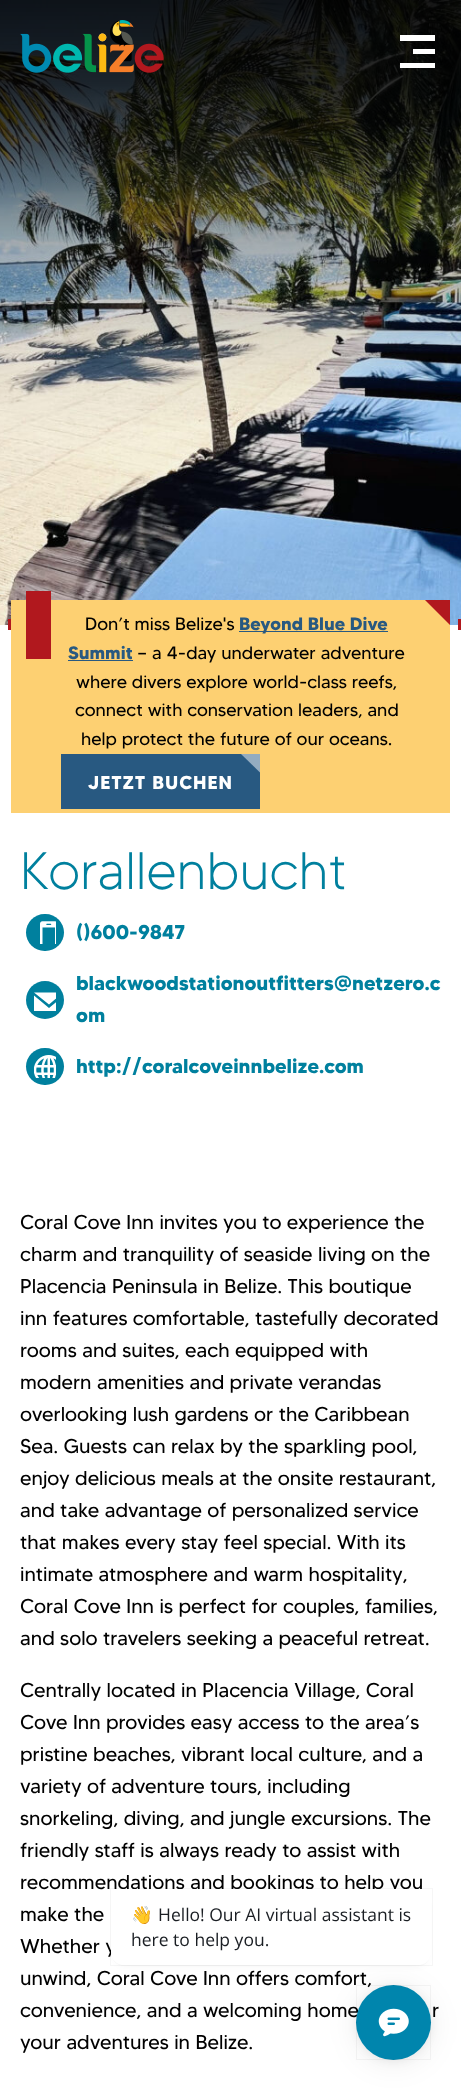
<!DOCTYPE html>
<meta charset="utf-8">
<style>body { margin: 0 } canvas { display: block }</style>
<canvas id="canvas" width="461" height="2089"></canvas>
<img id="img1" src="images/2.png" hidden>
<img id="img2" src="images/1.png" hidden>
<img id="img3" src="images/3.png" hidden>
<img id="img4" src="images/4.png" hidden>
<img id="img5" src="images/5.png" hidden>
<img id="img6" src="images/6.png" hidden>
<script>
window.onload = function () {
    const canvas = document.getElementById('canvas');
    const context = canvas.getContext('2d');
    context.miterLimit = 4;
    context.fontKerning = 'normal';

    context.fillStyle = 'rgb(255, 255, 255)';
    context.fillRect(0, 0, 461, 2089);
    context.drawImage(document.getElementById('img1'), 0, 0, 461, 625);
    context.drawImage(document.getElementById('img2'), 20, 20, 144, 53);
    context.fillRect(400, 35, 35, 6);
    context.fillRect(413, 49, 22, 5);
    context.fillRect(400, 63, 35, 5);
    context.drawImage(document.getElementById('img3'), 8, 619, 453, 11);
    context.fillStyle = 'rgb(253, 208, 114)';
    context.fillRect(11, 600, 439, 213);
    context.fillStyle = 'rgb(177, 24, 30)';
    context.fillRect(26, 591, 25, 68);
    context.beginPath();
    context.moveTo(450, 600);
    context.lineTo(450, 625);
    context.lineTo(425, 600);
    context.closePath();
    context.fill();
    context.fillStyle = 'rgb(40, 89, 129)';
    context.fillRect(239, 631, 149, 1);
    context.fillRect(68, 660, 65, 1);
    context.fillRect(61, 754, 199, 55);
    context.fillStyle = 'rgb(148, 172, 192)';
    context.beginPath();
    context.moveTo(260, 754);
    context.lineTo(260, 772.5);
    context.lineTo(241, 754);
    context.closePath();
    context.fill();
    context.fillStyle = 'rgb(0, 128, 158)';
    context.beginPath();
    context.roundRect(26, 914, 38, 37, 18.5);
    context.fill();
    context.drawImage(document.getElementById('img4'), 40, 921, 16, 23);
    context.beginPath();
    context.arc(45, 1000, 19, 0, 2 * Math.PI);
    context.fill();
    context.save();
    context.beginPath();
    context.rect(34, 989, 22, 22);
    context.clip();
    context.fillStyle = 'rgb(255, 255, 255)';
    context.beginPath();
    context.moveTo(49, 1008);
    context.lineTo(63.5, 996);
    context.bezierCurveTo(65, 1003, 62.5, 1010.5, 56.5, 1015);
    context.lineTo(34, 1015);
    context.lineTo(34, 995.5);
    context.closePath();
    context.moveTo(49, 1004.5);
    context.lineTo(34, 992.5);
    context.lineTo(62.5, 992.5);
    context.lineTo(62.5, 993);
    context.closePath();
    context.fill('evenodd');
    context.restore();
    context.beginPath();
    context.roundRect(26, 1048, 38, 37, 18.5);
    context.fill();
    context.drawImage(document.getElementById('img5'), 34, 1055, 22, 23);
    context.fillStyle = 'rgba(0, 0, 0, 0.08)';
    context.filter = 'blur(15px)';
    context.beginPath();
    context.roundRect(356, 1988, 75, 75, 37.5);
    context.fill();
    context.filter = 'none';
    context.fillStyle = 'rgba(0, 0, 0, 0.06)';
    context.filter = 'blur(4px)';
    context.beginPath();
    context.roundRect(356, 1986, 75, 75, 37.5);
    context.fill();
    context.filter = 'none';
    context.font = '18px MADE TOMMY';
    context.fillStyle = 'rgb(0, 0, 0)';
    context.fillText('Don’t miss Belize\'s', 85, 630);
    context.font = 'bold 18px MADE TOMMY';
    context.fillStyle = 'rgb(40, 89, 129)';
    context.fillText('Beyond Blue Dive', 239, 630);
    context.fillText('Summit', 68, 659);
    context.font = '18px MADE TOMMY';
    context.fillStyle = 'rgb(0, 0, 0)';
    context.fillText('— a 4-day underwater adventure', 137, 659);
    context.fillText('where divers explore world-class reefs,', 76, 688);
    context.fillText('connect with conservation leaders, and', 75, 716);
    context.fillText('help protect the future of our oceans.', 81, 745);
    context.letterSpacing = '1px';
    context.font = 'bold 18.75px MADE TOMMY';
    context.fillStyle = 'rgb(255, 255, 255)';
    context.fillText('JETZT BUCHEN', 88, 789);
    context.letterSpacing = '0px';
    context.font = '300 52.5px MADE TOMMY';
    context.fillStyle = 'rgb(0, 128, 158)';
    context.fillText('Korallenbucht', 20, 889);
    context.font = 'bold 20px MADE TOMMY';
    context.fillText('()600-9847', 76, 939);
    context.fillText('blackwoodstationoutfitters@netzero.c', 76, 990);
    context.fillText('om', 76, 1022);
    context.fillText('http://coralcoveinnbelize.com', 76, 1073);
    context.font = '20px MADE TOMMY';
    context.fillStyle = 'rgb(0, 0, 0)';
    context.fillText('Coral Cove Inn invites you to experience the', 20, 1229);
    context.fillText('charm and tranquility of seaside living on the', 20, 1261);
    context.fillText('Placencia Peninsula in Belize. This boutique', 20, 1293);
    context.fillText('inn features comfortable, tastefully decorated', 20, 1325);
    context.fillText('rooms and suites, each equipped with', 20, 1357);
    context.fillText('modern amenities and private verandas', 20, 1389);
    context.fillText('overlooking lush gardens or the Caribbean', 20, 1421);
    context.fillText('Sea. Guests can relax by the sparkling pool,', 20, 1453);
    context.fillText('enjoy delicious meals at the onsite restaurant,', 20, 1485);
    context.fillText('and take advantage of personalized service', 20, 1517);
    context.fillText('that makes every stay feel special. With its', 20, 1549);
    context.fillText('intimate atmosphere and warm hospitality,', 20, 1581);
    context.fillText('Coral Cove Inn is perfect for couples, families,', 20, 1613);
    context.fillText('and solo travelers seeking a peaceful retreat.', 20, 1645);
    context.fillText('Centrally located in Placencia Village, Coral', 20, 1697);
    context.fillText('Cove Inn provides easy access to the area’s', 20, 1729);
    context.fillText('pristine beaches, vibrant local culture, and a', 20, 1761);
    context.fillText('variety of adventure tours, including', 20, 1793);
    context.fillText('snorkeling, diving, and jungle excursions. The', 20, 1825);
    context.fillText('friendly staff is always ready to assist with', 20, 1857);
    context.fillText('recommendations and bookings to help you', 20, 1889);
    context.fillText('make the', 20, 1921);
    context.fillText('Whether y', 20, 1953);
    context.fillText('unwind, Coral Cove Inn offers comfort,', 20, 1985);
    context.fillText('convenience, and a welcoming home', 20, 2017);
    context.fillText('r', 432, 2017);
    context.fillText('your adventures in Belize.', 20, 2049);
    context.fillStyle = 'rgb(250, 250, 250)';
    context.beginPath();
    context.moveTo(111, 1900);
    context.lineTo(111, 1953);
    context.bezierCurveTo(111, 1960, 117, 1966, 124, 1966);
    context.lineTo(418, 1966);
    context.bezierCurveTo(424, 1966, 428, 1963, 430, 1958);
    context.bezierCurveTo(428, 1962, 424, 1965, 419, 1965);
    context.lineTo(124, 1965);
    context.bezierCurveTo(117, 1965, 111, 1959, 111, 1952);
    context.closePath();
    context.fill();
    context.strokeStyle = 'rgba(22, 26, 30, 0.04)';
    context.strokeRect(110.5, 1888.5, 322, 77);
    context.fillStyle = 'rgba(22, 26, 30, 0.08)';
    context.filter = 'blur(5px)';
    context.beginPath();
    context.roundRect(119, 1901, 305, 62, 5);
    context.fill();
    context.filter = 'none';
    context.fillStyle = 'rgb(255, 255, 255)';
    context.beginPath();
    context.roundRect(111, 1889, 320, 76, 13);
    context.fill();
    context.font = '17.5px Noto Color Emoji';
    context.fillStyle = 'rgb(26, 30, 35)';
    context.fillText('👋', 131, 1921);
    context.font = '17.5px Open Sans';
    context.fillText('Hello! Our AI virtual assistant is', 158, 1921);
    context.fillText('here to help you.', 131, 1946);
    context.fillStyle = 'rgb(0, 133, 173)';
    context.beginPath();
    context.arc(393.5, 2022.5, 37.5, 0, 2 * Math.PI);
    context.fill();
    context.strokeStyle = 'rgba(0, 0, 0, 0.04)';
    context.strokeRect(356.5, 1985.5, 74, 74);
    context.drawImage(document.getElementById('img6'), 378, 2008, 31, 29);
};
</script>
